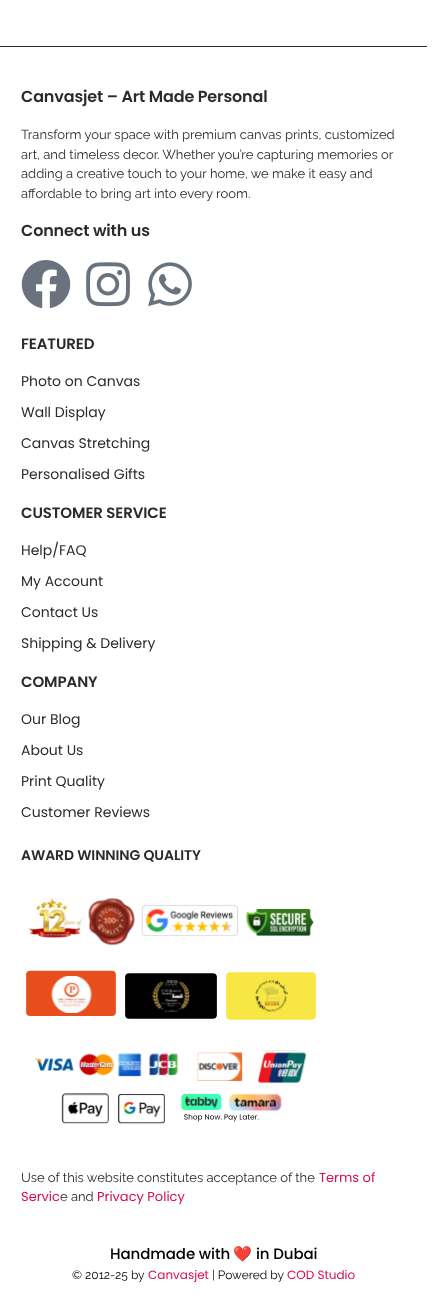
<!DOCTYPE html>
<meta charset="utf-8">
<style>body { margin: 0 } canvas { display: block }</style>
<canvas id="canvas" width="442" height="1313"></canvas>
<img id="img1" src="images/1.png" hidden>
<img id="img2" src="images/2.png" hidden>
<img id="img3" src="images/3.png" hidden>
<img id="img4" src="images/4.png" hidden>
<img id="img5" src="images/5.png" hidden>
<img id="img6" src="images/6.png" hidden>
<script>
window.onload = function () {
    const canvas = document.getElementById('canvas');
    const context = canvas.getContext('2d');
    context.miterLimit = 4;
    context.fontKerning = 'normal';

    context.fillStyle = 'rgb(255, 255, 255)';
    context.fillRect(0, 0, 442, 1313);
    context.fillStyle = 'rgb(43, 43, 41)';
    context.fillRect(0, 46, 427, 1);
    context.drawImage(document.getElementById('img1'), 21, 260, 50, 49);
    context.drawImage(document.getElementById('img2'), 86, 262, 44, 45);
    context.drawImage(document.getElementById('img3'), 148, 262, 44, 45);
    context.drawImage(document.getElementById('img4'), 29, 898, 285, 48);
    context.drawImage(document.getElementById('img5'), 26, 970, 290, 50);
    context.drawImage(document.getElementById('img6'), 34, 1050, 273, 74);
    context.letterSpacing = '-0.15px';
    context.font = '600 16px Poppins';
    context.fillText('Canvasjet – Art Made Personal', 21, 102);
    context.letterSpacing = '0px';
    context.font = '13px Raleway';
    context.fillText('Transform your space with premium canvas prints, customized', 21, 139);
    context.fillText('art, and timeless decor. Whether you’re capturing memories or', 21, 159);
    context.fillText('adding a creative touch to your home, we make it easy and', 21, 178);
    context.fillText('affordable to bring art into every room.', 21, 198);
    context.letterSpacing = '-0.15px';
    context.font = '600 16px Poppins';
    context.fillText('Connect with us', 21, 236);
    context.letterSpacing = '-0.1px';
    context.font = '600 15px Poppins';
    context.fillText('FEATURED', 21, 349);
    context.letterSpacing = '0px';
    context.font = '14px Poppins';
    context.fillText('Photo on Canvas', 21, 386);
    context.fillText('Wall Display', 21, 417);
    context.fillText('Canvas Stretching', 21, 448);
    context.fillText('Personalised Gifts', 21, 479);
    context.letterSpacing = '-0.1px';
    context.font = '600 15px Poppins';
    context.fillText('CUSTOMER SERVICE', 21, 518);
    context.letterSpacing = '0px';
    context.font = '14px Poppins';
    context.fillText('Help/FAQ', 21, 555);
    context.fillText('My Account', 21, 586);
    context.fillText('Contact Us', 21, 617);
    context.fillText('Shipping & Delivery', 21, 648);
    context.letterSpacing = '-0.1px';
    context.font = '600 15px Poppins';
    context.fillText('COMPANY', 21, 687);
    context.letterSpacing = '0px';
    context.font = '14px Poppins';
    context.fillText('Our Blog', 21, 724);
    context.fillText('About Us', 21, 755);
    context.fillText('Print Quality', 21, 786);
    context.fillText('Customer Reviews', 21, 817);
    context.letterSpacing = '-0.1px';
    context.font = '600 14px Poppins';
    context.fillText('AWARD WINNING QUALITY', 21, 860);
    context.letterSpacing = '0px';
    context.font = '13px Raleway';
    context.fillText('Use of this website constitutes acceptance of the', 21, 1182);
    context.font = '13px Poppins';
    context.fillStyle = 'rgb(215, 14, 84)';
    context.fillText('Terms of', 319, 1182);
    context.fillText('Servic', 21, 1201);
    context.font = '13px Raleway';
    context.fillStyle = 'rgb(43, 43, 41)';
    context.fillText('e and', 60, 1201);
    context.font = '13px Poppins';
    context.fillStyle = 'rgb(215, 14, 84)';
    context.fillText('Privacy Policy', 97, 1201);
    context.letterSpacing = '-0.1px';
    context.font = '500 15px Poppins';
    context.fillStyle = 'rgb(0, 0, 0)';
    context.fillText('Handmade with', 110, 1259);
    context.font = '15px Noto Color Emoji';
    context.fillText('❤️', 233, 1259);
    context.font = '500 15px Poppins';
    context.fillText('in Dubai', 256, 1259);
    context.letterSpacing = '0px';
    context.font = '12px Raleway';
    context.fillText('© 2012-25 by', 72, 1279);
    context.font = '12px Poppins';
    context.fillStyle = 'rgb(215, 14, 84)';
    context.fillText('Canvasjet', 148, 1279);
    context.font = '12px Raleway';
    context.fillStyle = 'rgb(0, 0, 0)';
    context.fillText('| Powered by', 212, 1279);
    context.font = '12px Poppins';
    context.fillStyle = 'rgb(215, 14, 84)';
    context.fillText('COD Studio', 287, 1279);
};
</script>
